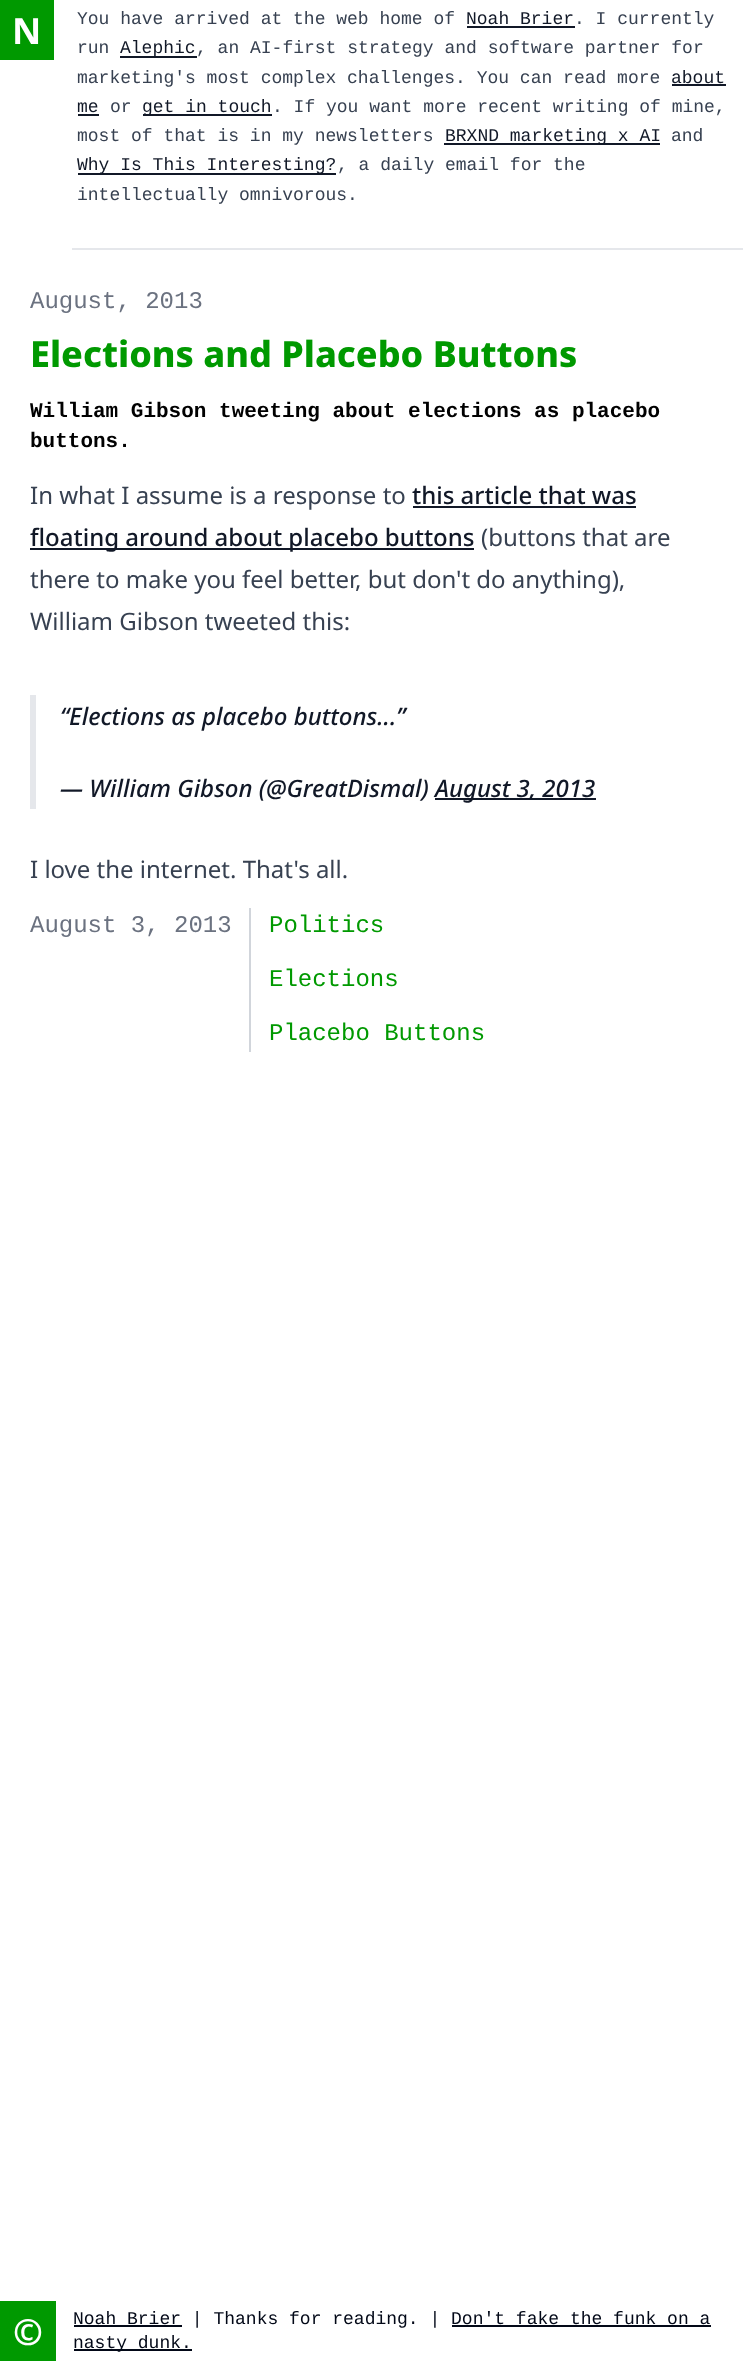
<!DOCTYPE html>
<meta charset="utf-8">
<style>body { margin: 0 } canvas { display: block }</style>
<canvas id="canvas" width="743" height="2361"></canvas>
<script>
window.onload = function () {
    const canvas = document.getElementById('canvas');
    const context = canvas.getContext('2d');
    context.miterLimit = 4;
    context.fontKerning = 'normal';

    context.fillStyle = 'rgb(255, 255, 255)';
    context.fillRect(0, 0, 743, 2361);
    context.fillStyle = 'rgb(0, 153, 0)';
    context.fillRect(0, 0, 54, 60);
    context.fillStyle = 'rgb(229, 231, 235)';
    context.fillRect(72, 248, 671, 2);
    context.fillStyle = 'rgb(17, 24, 39)';
    context.fillRect(467, 26, 108, 2);
    context.fillRect(120, 56, 77, 2);
    context.fillRect(672, 84, 54, 2);
    context.fillRect(78, 114, 21, 2);
    context.fillRect(143, 114, 129, 2);
    context.fillRect(444, 143, 216, 2);
    context.fillRect(78, 173, 258, 2);
    context.fillRect(413, 506, 223, 2);
    context.fillRect(30, 548, 444, 2);
    context.fillStyle = 'rgb(229, 231, 235)';
    context.fillRect(30, 695, 6, 114);
    context.fillStyle = 'rgb(17, 24, 39)';
    context.fillRect(435, 798, 161, 2);
    context.fillStyle = 'rgb(209, 213, 219)';
    context.fillRect(249, 908, 2, 144);
    context.fillStyle = 'rgb(0, 153, 0)';
    context.fillRect(0, 2301, 56, 60);
    context.fillStyle = 'rgb(2, 8, 23)';
    context.fillRect(74, 2325, 108, 2);
    context.fillRect(452, 2325, 259, 2);
    context.fillRect(74, 2349, 118, 2);
    context.font = 'bold 36px Noto Sans';
    context.fillStyle = 'rgb(255, 255, 255)';
    context.fillText('N', 12, 44);
    context.font = '18px Liberation Mono';
    context.fillStyle = 'rgb(55, 65, 81)';
    context.fillText('You have arrived at the web home of', 77, 24);
    context.fillStyle = 'rgb(17, 24, 39)';
    context.fillText('Noah Brier', 466, 24);
    context.fillStyle = 'rgb(55, 65, 81)';
    context.fillText('. I currently', 574, 24);
    context.fillText('run', 77, 53);
    context.fillStyle = 'rgb(17, 24, 39)';
    context.fillText('Alephic', 120, 53);
    context.fillStyle = 'rgb(55, 65, 81)';
    context.fillText(', an AI-first strategy and software partner for', 196, 53);
    context.fillText('marketing\'s most complex challenges. You can read more', 77, 83);
    context.fillStyle = 'rgb(17, 24, 39)';
    context.fillText('about', 671, 83);
    context.fillText('me', 77, 112);
    context.fillStyle = 'rgb(55, 65, 81)';
    context.fillText('or', 110, 112);
    context.fillStyle = 'rgb(17, 24, 39)';
    context.fillText('get in touch', 142, 112);
    context.fillStyle = 'rgb(55, 65, 81)';
    context.fillText('. If you want more recent writing of mine,', 272, 112);
    context.fillText('most of that is in my newsletters', 77, 141);
    context.fillStyle = 'rgb(17, 24, 39)';
    context.fillText('BRXND marketing x AI', 445, 141);
    context.fillStyle = 'rgb(55, 65, 81)';
    context.fillText('and', 671, 141);
    context.fillStyle = 'rgb(17, 24, 39)';
    context.fillText('Why Is This Interesting?', 77, 170);
    context.fillStyle = 'rgb(55, 65, 81)';
    context.fillText(', a daily email for the', 337, 170);
    context.fillText('intellectually omnivorous.', 77, 200);
    context.font = '24px Liberation Mono';
    context.fillStyle = 'rgb(107, 114, 128)';
    context.fillText('August, 2013', 30, 308);
    context.font = '800 36px Noto Sans';
    context.fillStyle = 'rgb(0, 153, 0)';
    context.fillText('Elections and Placebo Buttons', 30, 367);
    context.font = 'bold 21px Liberation Mono';
    context.fillStyle = 'rgb(0, 0, 0)';
    context.fillText('William Gibson tweeting about elections as placebo', 30, 417);
    context.fillText('buttons.', 30, 447);
    context.font = '24px Noto Sans';
    context.fillStyle = 'rgb(55, 65, 81)';
    context.fillText('In what I assume is a response to', 30, 504);
    context.font = '500 24px Noto Sans';
    context.fillStyle = 'rgb(17, 24, 39)';
    context.fillText('this article that was', 412, 504);
    context.fillText('floating around about placebo buttons', 30, 546);
    context.font = '24px Noto Sans';
    context.fillStyle = 'rgb(55, 65, 81)';
    context.fillText('(buttons that are', 481, 546);
    context.fillText('there to make you feel better, but don\'t do anything),', 30, 588);
    context.fillText('William Gibson tweeted this:', 30, 630);
    context.font = 'italic 500 24px Noto Sans';
    context.fillStyle = 'rgb(17, 24, 39)';
    context.fillText('“Elections as placebo buttons...”', 60, 725);
    context.fillText('— William Gibson (@GreatDismal)', 60, 797);
    context.fillText('August 3, 2013', 435, 797);
    context.font = '24px Noto Sans';
    context.fillStyle = 'rgb(55, 65, 81)';
    context.fillText('I love the internet. That\'s all.', 30, 878);
    context.font = '24px Liberation Mono';
    context.fillStyle = 'rgb(107, 114, 128)';
    context.fillText('August 3, 2013', 30, 932);
    context.fillStyle = 'rgb(0, 153, 0)';
    context.fillText('Politics', 269, 932);
    context.fillText('Elections', 269, 986);
    context.fillText('Placebo Buttons', 269, 1040);
    context.font = 'bold 36px Noto Sans';
    context.fillStyle = 'rgb(255, 255, 255)';
    context.fillText('©', 13, 2345);
    context.font = '18px Liberation Mono';
    context.fillStyle = 'rgb(2, 8, 23)';
    context.fillText('Noah Brier | Thanks for reading. | Don\'t fake the funk on a', 73, 2324);
    context.fillText('nasty dunk.', 73, 2348);
};
</script>
